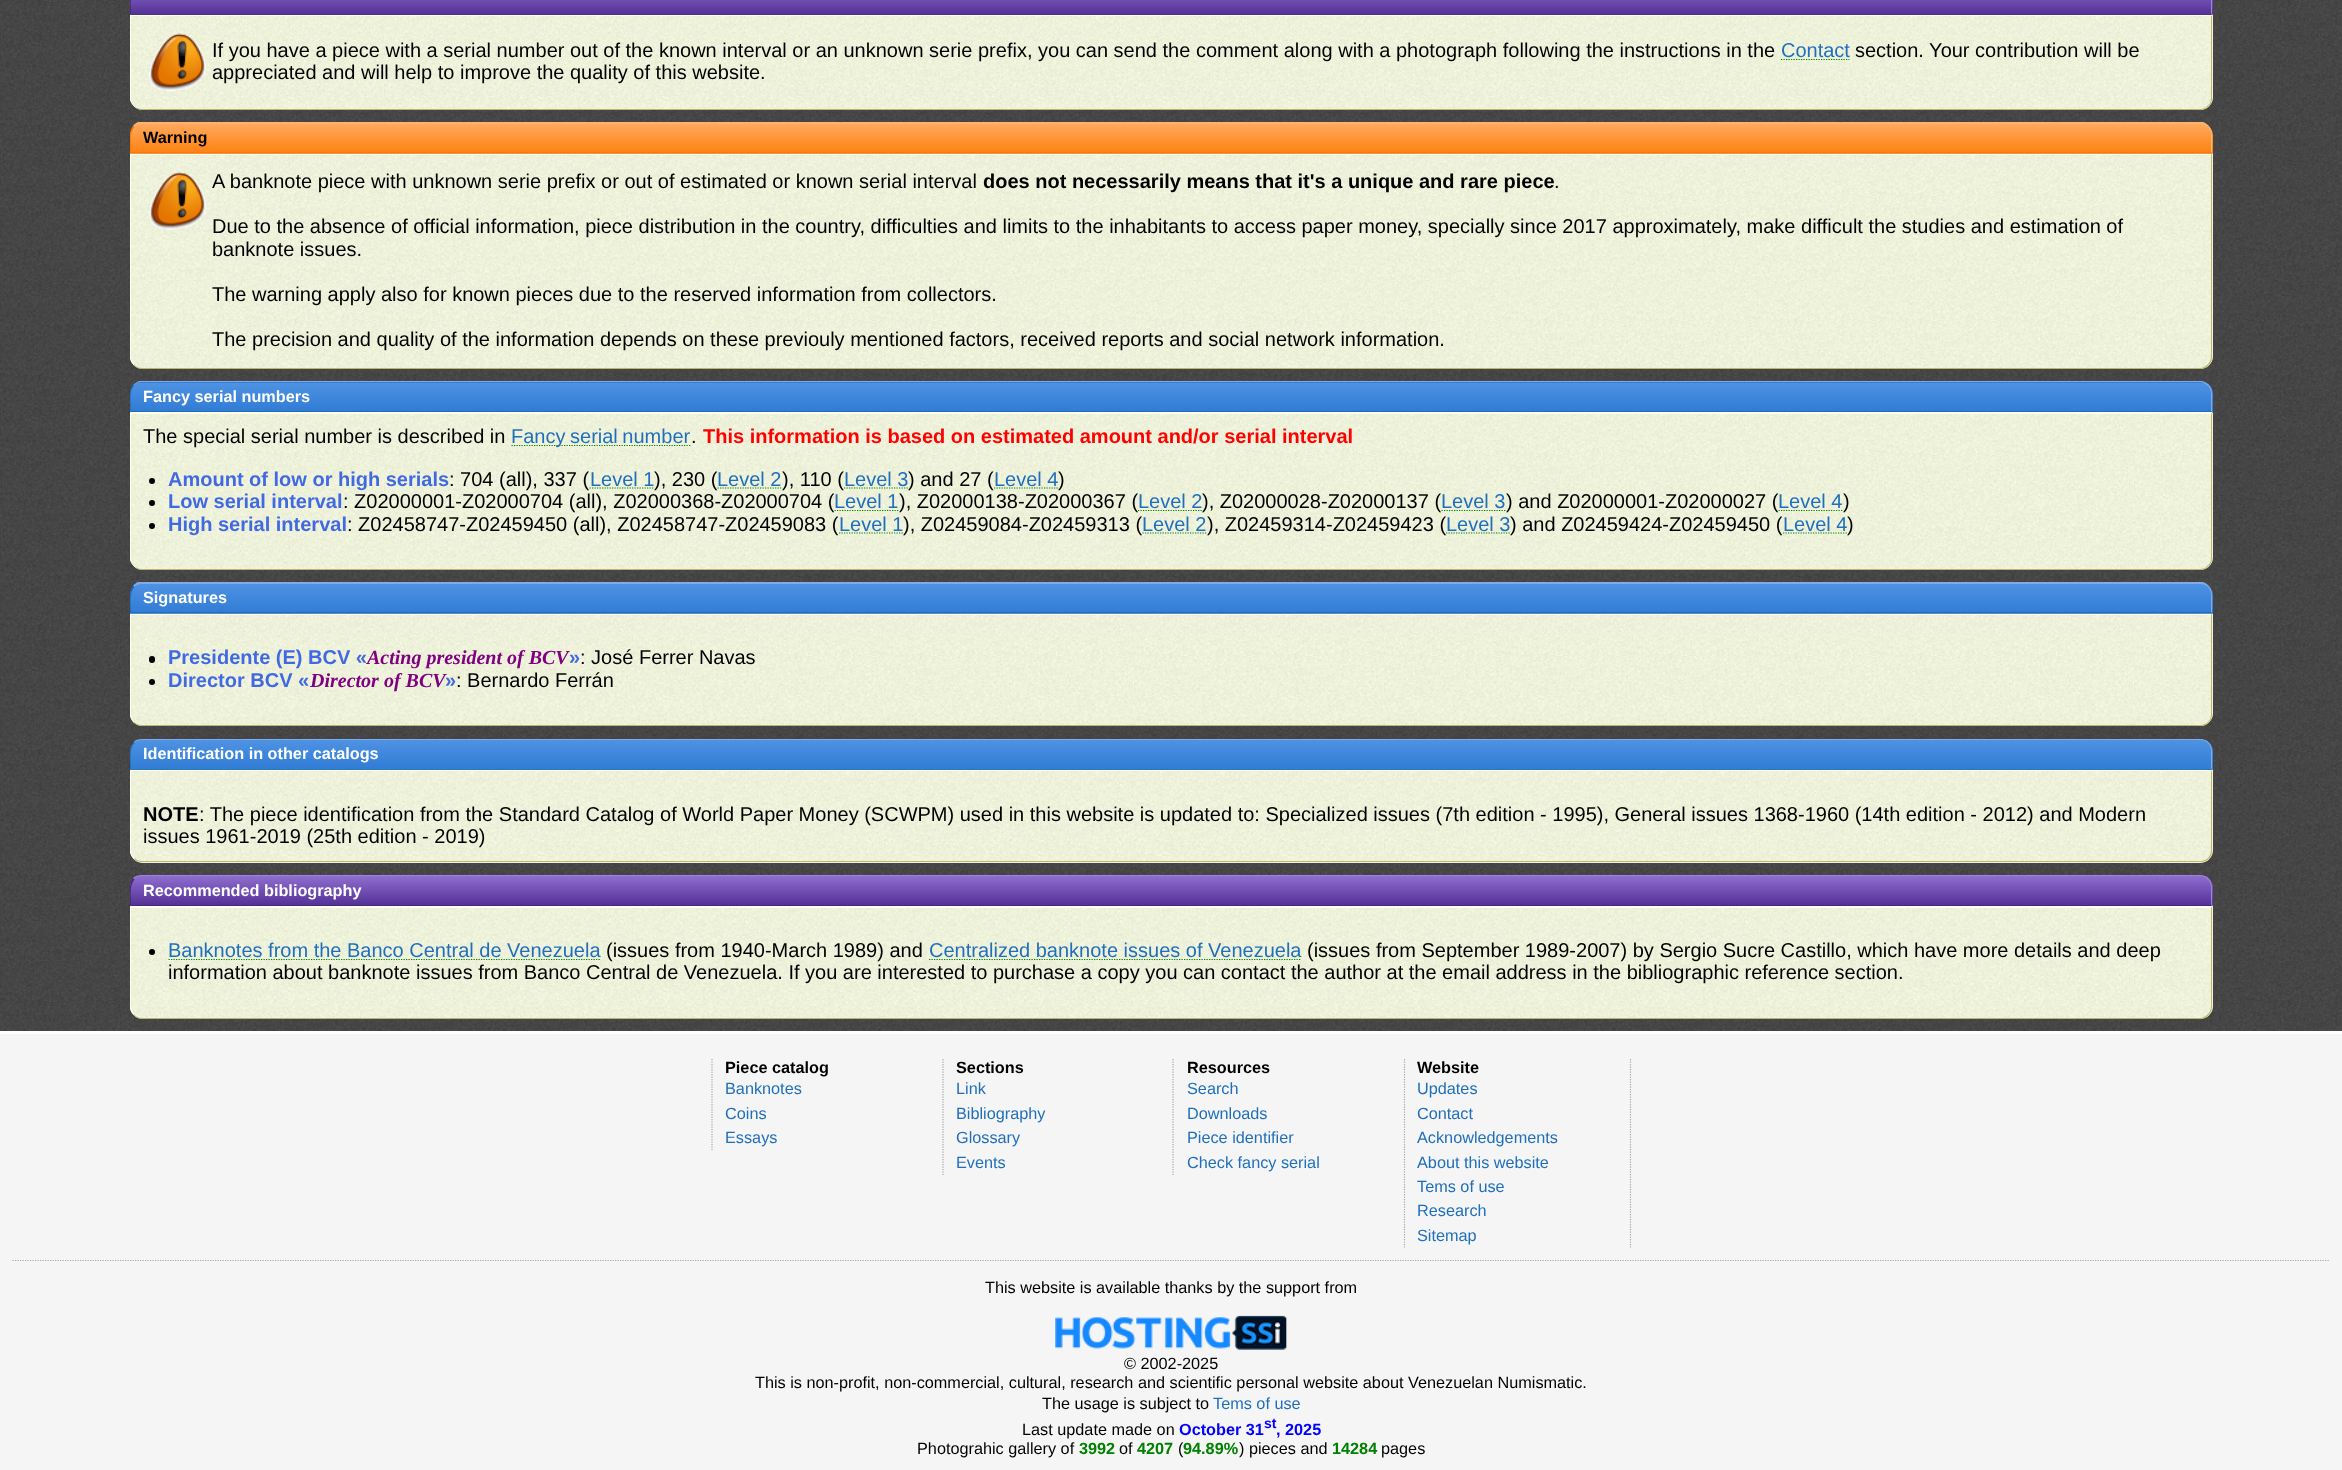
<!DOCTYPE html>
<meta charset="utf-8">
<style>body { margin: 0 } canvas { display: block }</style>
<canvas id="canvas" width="2342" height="1470"></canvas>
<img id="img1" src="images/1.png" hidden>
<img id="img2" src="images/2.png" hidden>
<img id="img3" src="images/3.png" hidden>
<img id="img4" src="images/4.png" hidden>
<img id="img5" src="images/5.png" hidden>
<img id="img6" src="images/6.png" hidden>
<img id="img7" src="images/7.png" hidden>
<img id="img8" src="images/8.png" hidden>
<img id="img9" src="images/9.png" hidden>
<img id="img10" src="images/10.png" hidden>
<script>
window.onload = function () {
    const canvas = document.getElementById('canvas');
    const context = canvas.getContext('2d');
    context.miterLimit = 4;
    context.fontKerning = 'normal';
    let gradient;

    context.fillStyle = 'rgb(255, 255, 255)';
    context.fillRect(0, 0, 2342, 1470);
    context.drawImage(document.getElementById('img1'), 0, 0, 2342, 1031);
    gradient = context.createLinearGradient(1171, 14, 1171, -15);
    gradient.addColorStop(0, 'rgb(84, 49, 149)');
    gradient.addColorStop(1, 'rgb(144, 110, 208)');
    context.fillStyle = gradient;
    context.fillRect(130, 0, 2083, 14);
    gradient = context.createLinearGradient(1171, 43, 1171, 14);
    gradient.addColorStop(0, 'rgb(84, 49, 149)');
    gradient.addColorStop(1, 'rgb(144, 110, 208)');
    context.fillStyle = gradient;
    context.fillRect(130, 14, 2083, 1);
    context.fillStyle = 'rgb(162, 128, 227)';
    context.beginPath();
    context.moveTo(2212, 14.5);
    context.lineTo(2212, -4);
    context.bezierCurveTo(2212, -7.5, 2211, -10.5, 2208.5, -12.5);
    context.lineTo(2208, -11.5);
    context.bezierCurveTo(2210, -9.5, 2211, -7, 2211, -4);
    context.lineTo(2211, 13.5);
    context.closePath();
    context.fill();
    context.fillStyle = 'rgb(70, 38, 129)';
    context.beginPath();
    context.moveTo(2212, 15);
    context.lineTo(2211, 14);
    context.lineTo(131, 14);
    context.lineTo(130, 15);
    context.closePath();
    context.fill();
    context.beginPath();
    context.moveTo(130, 15);
    context.lineTo(131, 14);
    context.bezierCurveTo(131, 6, 129, -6, 134.5, -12);
    context.lineTo(133.5, -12.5);
    context.bezierCurveTo(131.5, -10.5, 130.5, -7.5, 130, -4);
    context.closePath();
    context.fill();
    context.fillStyle = 'rgb(241, 245, 222)';
    context.beginPath();
    context.roundRect(130, 15, 2083, 95, [0, 0, 13, 13]);
    context.fill();
    context.drawImage(document.getElementById('img2'), 130, 14, 2083, 96);
    context.fillStyle = 'rgb(255, 255, 240)';
    context.beginPath();
    context.moveTo(130, 15);
    context.lineTo(131, 16);
    context.lineTo(2211, 16);
    context.lineTo(2212, 15);
    context.closePath();
    context.fill();
    context.fillStyle = 'rgb(189, 183, 107)';
    context.beginPath();
    context.moveTo(2212, 16);
    context.lineTo(2212, 98);
    context.bezierCurveTo(2212, 101, 2211, 104, 2209, 106);
    context.lineTo(2208, 105);
    context.bezierCurveTo(2210, 104, 2211, 101, 2211, 98);
    context.lineTo(2211, 16);
    context.closePath();
    context.fill();
    context.beginPath();
    context.moveTo(142, 110);
    context.lineTo(2200, 110);
    context.bezierCurveTo(2204, 110, 2207, 108, 2209, 106);
    context.lineTo(2208, 105);
    context.bezierCurveTo(2206, 108, 2203, 109, 2200, 109);
    context.lineTo(142, 109);
    context.bezierCurveTo(139, 109, 136, 108, 134, 106);
    context.bezierCurveTo(136, 108, 139, 110, 142, 110);
    context.closePath();
    context.fill();
    context.fillStyle = 'rgb(255, 255, 240)';
    context.beginPath();
    context.moveTo(131, 16);
    context.lineTo(130, 15);
    context.lineTo(130, 98);
    context.bezierCurveTo(130, 101, 132, 104, 134, 106);
    context.bezierCurveTo(132, 104, 131, 101, 131, 98);
    context.closePath();
    context.fill();
    context.drawImage(document.getElementById('img3'), 148, 33, 59, 59);
    context.beginPath();
    context.moveTo(1781, 59.5);
    context.lineTo(1849.5, 59.5);
    context.strokeStyle = 'rgb(0, 128, 0)';
    context.lineWidth = 1.2;
    context.setLineDash([1.25, 1.25]);
    context.stroke();
    context.save();
    context.beginPath();
    context.roundRect(130, 123, 2083, 31, [13, 13, 0, 0]);
    context.clip();
    gradient = context.createLinearGradient(1171, 153, 1171, 124);
    gradient.addColorStop(0, 'rgb(255, 129, 18)');
    gradient.addColorStop(1, 'rgb(255, 169, 93)');
    context.fillStyle = gradient;
    context.fillRect(130, 124, 2083, 29);
    context.restore();
    gradient = context.createLinearGradient(1171, 181, 1171, 153);
    gradient.addColorStop(0, 'rgb(255, 129, 18)');
    gradient.addColorStop(1, 'rgb(255, 169, 93)');
    context.fillStyle = gradient;
    context.fillRect(130, 153, 2083, 1);
    context.fillStyle = 'rgb(253, 178, 110)';
    context.beginPath();
    context.moveTo(142, 124);
    context.bezierCurveTo(139, 124, 136, 125, 134, 127);
    context.lineTo(133, 126);
    context.bezierCurveTo(134, 124, 136, 123, 138, 122);
    context.lineTo(2203, 122);
    context.bezierCurveTo(2206, 123, 2207, 124, 2209, 126);
    context.lineTo(2208, 127);
    context.bezierCurveTo(2206, 125, 2203, 124, 2200, 124);
    context.closePath();
    context.fill();
    context.beginPath();
    context.moveTo(2209, 126);
    context.bezierCurveTo(2211, 128.5, 2212, 131.5, 2212, 135);
    context.lineTo(2212, 153);
    context.lineTo(2211, 152);
    context.lineTo(2211, 135);
    context.bezierCurveTo(2211, 132, 2210, 129, 2208, 127);
    context.closePath();
    context.fill();
    context.fillStyle = 'rgb(248, 120, 13)';
    context.beginPath();
    context.moveTo(2212, 153);
    context.lineTo(2212, 154);
    context.lineTo(130, 154);
    context.lineTo(132, 152);
    context.lineTo(2211, 152);
    context.closePath();
    context.fill();
    context.beginPath();
    context.moveTo(130, 154);
    context.lineTo(130, 134);
    context.bezierCurveTo(130.5, 130.5, 131.5, 128, 133, 125.5);
    context.lineTo(134.5, 127);
    context.bezierCurveTo(129, 133, 131, 144.5, 131, 152);
    context.lineTo(132, 152);
    context.closePath();
    context.fill();
    context.fillStyle = 'rgb(241, 245, 222)';
    context.beginPath();
    context.roundRect(130, 154, 2083, 215, [0, 0, 13, 13]);
    context.fill();
    context.drawImage(document.getElementById('img4'), 130, 153, 2083, 216);
    context.fillStyle = 'rgb(255, 255, 240)';
    context.beginPath();
    context.moveTo(2212, 154);
    context.lineTo(130, 154);
    context.lineTo(131, 155);
    context.lineTo(2211, 155);
    context.closePath();
    context.fill();
    context.fillStyle = 'rgb(189, 183, 107)';
    context.beginPath();
    context.moveTo(2212, 154);
    context.lineTo(2212, 356);
    context.bezierCurveTo(2212, 359, 2211, 363, 2209, 365);
    context.lineTo(2208, 364);
    context.bezierCurveTo(2210, 362, 2211, 359, 2211, 356);
    context.lineTo(2211, 155);
    context.closePath();
    context.fill();
    context.beginPath();
    context.moveTo(140, 369);
    context.bezierCurveTo(138, 368, 135, 367, 134, 365);
    context.lineTo(134, 364);
    context.bezierCurveTo(136, 367, 139, 368, 142, 368);
    context.lineTo(2200, 368);
    context.bezierCurveTo(2203, 368, 2206, 366, 2208, 364);
    context.lineTo(2209, 365);
    context.bezierCurveTo(2207, 367, 2205, 368, 2202, 369);
    context.closePath();
    context.fill();
    context.fillStyle = 'rgb(255, 255, 240)';
    context.beginPath();
    context.moveTo(131, 155);
    context.lineTo(131, 356);
    context.bezierCurveTo(131, 359, 132, 362, 134, 364);
    context.lineTo(134, 365);
    context.bezierCurveTo(131, 363, 130, 359, 130, 356);
    context.lineTo(130, 154);
    context.closePath();
    context.fill();
    context.drawImage(document.getElementById('img5'), 148, 172, 59, 58);
    context.save();
    context.beginPath();
    context.roundRect(130, 381, 2083, 32, [13, 13, 0, 0]);
    context.clip();
    gradient = context.createLinearGradient(1171, 383, 1171, 354);
    gradient.addColorStop(0, 'rgb(49, 124, 213)');
    gradient.addColorStop(1, 'rgb(78, 146, 227)');
    context.fillStyle = gradient;
    context.fillRect(130, 381, 2083, 2);
    gradient = context.createLinearGradient(1171, 411, 1171, 383);
    gradient.addColorStop(0, 'rgb(49, 124, 213)');
    gradient.addColorStop(1, 'rgb(78, 146, 227)');
    context.fillStyle = gradient;
    context.fillRect(130, 383, 2083, 28);
    context.restore();
    gradient = context.createLinearGradient(1171, 440, 1171, 411);
    gradient.addColorStop(0, 'rgb(49, 124, 213)');
    gradient.addColorStop(1, 'rgb(78, 146, 227)');
    context.fillStyle = gradient;
    context.fillRect(130, 411, 2083, 2);
    context.fillStyle = 'rgb(129, 170, 230)';
    context.beginPath();
    context.moveTo(142, 382);
    context.bezierCurveTo(138, 382, 136, 383, 134, 385);
    context.lineTo(133, 385);
    context.bezierCurveTo(135, 383, 137, 382, 139, 381);
    context.lineTo(2202, 381);
    context.bezierCurveTo(2205, 382, 2207, 383, 2209, 385);
    context.lineTo(2208, 386);
    context.bezierCurveTo(2206, 384, 2203, 382, 2200, 382);
    context.closePath();
    context.fill();
    context.beginPath();
    context.moveTo(2208.5, 385);
    context.bezierCurveTo(2211, 387.5, 2212, 390.5, 2212, 394);
    context.lineTo(2212, 412);
    context.lineTo(2211, 411);
    context.lineTo(2211, 394);
    context.bezierCurveTo(2211, 391, 2210, 388, 2208, 386);
    context.closePath();
    context.fill();
    context.fillStyle = 'rgb(31, 111, 188)';
    context.beginPath();
    context.moveTo(2212, 412);
    context.lineTo(2211, 411);
    context.lineTo(132, 411);
    context.lineTo(130, 412);
    context.closePath();
    context.fill();
    context.beginPath();
    context.moveTo(130, 393);
    context.bezierCurveTo(130.5, 389.5, 131.5, 386.5, 133.5, 384.5);
    context.lineTo(134, 385.5);
    context.bezierCurveTo(129, 392, 131, 403, 131, 411);
    context.lineTo(131.5, 411);
    context.lineTo(130.5, 412);
    context.lineTo(130, 412);
    context.closePath();
    context.fill();
    context.fillStyle = 'rgb(241, 245, 222)';
    context.beginPath();
    context.roundRect(130, 413, 2083, 157, [0, 0, 13, 13]);
    context.fill();
    context.drawImage(document.getElementById('img6'), 130, 412, 2083, 158);
    context.fillStyle = 'rgb(255, 255, 240)';
    context.beginPath();
    context.moveTo(130, 412);
    context.lineTo(2212, 412);
    context.lineTo(2211, 414);
    context.lineTo(132, 414);
    context.closePath();
    context.fill();
    context.fillStyle = 'rgb(189, 183, 107)';
    context.beginPath();
    context.moveTo(2212, 413);
    context.lineTo(2212, 558);
    context.bezierCurveTo(2212, 561, 2211, 564, 2209, 566);
    context.lineTo(2208, 565);
    context.bezierCurveTo(2210, 564, 2211, 561, 2211, 558);
    context.lineTo(2211, 414);
    context.closePath();
    context.fill();
    context.beginPath();
    context.moveTo(142, 570);
    context.lineTo(2200, 570);
    context.bezierCurveTo(2204, 570, 2207, 568, 2209, 566);
    context.lineTo(2208, 565);
    context.bezierCurveTo(2206, 568, 2203, 569, 2200, 569);
    context.lineTo(142, 569);
    context.bezierCurveTo(139, 569, 136, 568, 134, 566);
    context.bezierCurveTo(136, 568, 139, 570, 142, 570);
    context.closePath();
    context.fill();
    context.fillStyle = 'rgb(255, 255, 240)';
    context.beginPath();
    context.moveTo(131, 414);
    context.lineTo(132, 414);
    context.lineTo(130, 412);
    context.lineTo(130, 558);
    context.bezierCurveTo(130, 561, 132, 564, 134, 566);
    context.bezierCurveTo(132, 564, 131, 561, 131, 558);
    context.closePath();
    context.fill();
    context.beginPath();
    context.moveTo(511.5, 445.5);
    context.lineTo(691.5, 445.5);
    context.stroke();
    context.fillStyle = 'rgb(0, 0, 0)';
    context.beginPath();
    context.arc(152, 481, 3, 0, 2 * Math.PI);
    context.fill();
    context.beginPath();
    context.moveTo(844, 488);
    context.lineTo(908.5, 488);
    context.stroke();
    context.beginPath();
    context.moveTo(994, 488);
    context.lineTo(1058.5, 488);
    context.stroke();
    context.beginPath();
    context.arc(152, 503, 3, 0, 2 * Math.PI);
    context.fill();
    context.beginPath();
    context.moveTo(1138, 510.5);
    context.lineTo(1202.5, 510.5);
    context.stroke();
    context.beginPath();
    context.arc(152, 526, 3, 0, 2 * Math.PI);
    context.fill();
    context.beginPath();
    context.moveTo(839, 533);
    context.lineTo(903.5, 533);
    context.stroke();
    context.beginPath();
    context.moveTo(1446, 533);
    context.lineTo(1510.5, 533);
    context.stroke();
    context.beginPath();
    context.moveTo(1783, 533);
    context.lineTo(1847.5, 533);
    context.stroke();
    context.save();
    context.beginPath();
    context.roundRect(130, 583, 2083, 31, [13, 13, 0, 0]);
    context.clip();
    gradient = context.createLinearGradient(1171, 613, 1171, 584);
    gradient.addColorStop(0, 'rgb(49, 124, 213)');
    gradient.addColorStop(1, 'rgb(78, 146, 227)');
    context.fillStyle = gradient;
    context.fillRect(130, 584, 2083, 29);
    context.restore();
    gradient = context.createLinearGradient(1171, 641, 1171, 613);
    gradient.addColorStop(0, 'rgb(49, 124, 213)');
    gradient.addColorStop(1, 'rgb(78, 146, 227)');
    context.fillStyle = gradient;
    context.fillRect(130, 613, 2083, 1);
    context.fillStyle = 'rgb(129, 170, 230)';
    context.beginPath();
    context.moveTo(142, 584);
    context.bezierCurveTo(139, 584, 136, 585, 134, 587);
    context.lineTo(133, 586);
    context.bezierCurveTo(134, 584, 136, 583, 138, 582);
    context.lineTo(2203, 582);
    context.bezierCurveTo(2206, 583, 2207, 584, 2209, 586);
    context.lineTo(2208, 587);
    context.bezierCurveTo(2206, 585, 2203, 584, 2200, 584);
    context.closePath();
    context.fill();
    context.beginPath();
    context.moveTo(2209, 586);
    context.bezierCurveTo(2211, 588.5, 2212, 591.5, 2212, 595);
    context.lineTo(2212, 613);
    context.lineTo(2211, 612);
    context.lineTo(2211, 595);
    context.bezierCurveTo(2211, 592, 2210, 589, 2208, 587);
    context.closePath();
    context.fill();
    context.fillStyle = 'rgb(31, 111, 188)';
    context.beginPath();
    context.moveTo(2212, 613);
    context.lineTo(2212, 614);
    context.lineTo(130, 614);
    context.lineTo(132, 612);
    context.lineTo(2211, 612);
    context.closePath();
    context.fill();
    context.beginPath();
    context.moveTo(130, 614);
    context.lineTo(130, 594);
    context.bezierCurveTo(130.5, 590.5, 131.5, 588, 133, 585.5);
    context.lineTo(134.5, 587);
    context.bezierCurveTo(129, 593, 131, 604.5, 131, 612);
    context.lineTo(132, 612);
    context.closePath();
    context.fill();
    context.fillStyle = 'rgb(241, 245, 222)';
    context.beginPath();
    context.roundRect(130, 614, 2083, 112, [0, 0, 13, 13]);
    context.fill();
    context.drawImage(document.getElementById('img7'), 130, 613, 2083, 113);
    context.fillStyle = 'rgb(255, 255, 240)';
    context.beginPath();
    context.moveTo(2212, 614);
    context.lineTo(130, 614);
    context.lineTo(131, 615);
    context.lineTo(2211, 615);
    context.closePath();
    context.fill();
    context.fillStyle = 'rgb(189, 183, 107)';
    context.beginPath();
    context.moveTo(2212, 614);
    context.lineTo(2212, 714);
    context.bezierCurveTo(2212, 717, 2211, 720, 2209, 722);
    context.lineTo(2208, 722);
    context.bezierCurveTo(2210, 720, 2211, 717, 2211, 714);
    context.lineTo(2211, 615);
    context.closePath();
    context.fill();
    context.beginPath();
    context.moveTo(2209, 722);
    context.bezierCurveTo(2207, 725, 2204, 726, 2200, 726);
    context.lineTo(142, 726);
    context.bezierCurveTo(139, 726, 136, 725, 134, 723);
    context.lineTo(134, 722);
    context.bezierCurveTo(136, 724, 139, 725, 142, 725);
    context.lineTo(2200, 725);
    context.bezierCurveTo(2203, 725, 2206, 724, 2208, 722);
    context.closePath();
    context.fill();
    context.fillStyle = 'rgb(255, 255, 240)';
    context.beginPath();
    context.moveTo(131, 615);
    context.lineTo(131, 714);
    context.bezierCurveTo(131, 717, 132, 720, 134, 722);
    context.lineTo(134, 723);
    context.bezierCurveTo(131, 720, 130, 717, 130, 714);
    context.lineTo(130, 614);
    context.closePath();
    context.fill();
    context.fillStyle = 'rgb(0, 0, 0)';
    context.beginPath();
    context.roundRect(149, 656, 6, 7, 3);
    context.fill();
    context.beginPath();
    context.arc(152, 682, 3, 0, 2 * Math.PI);
    context.fill();
    context.save();
    context.beginPath();
    context.roundRect(130, 739, 2083, 31, [13, 13, 0, 0]);
    context.clip();
    gradient = context.createLinearGradient(1171, 769, 1171, 740);
    gradient.addColorStop(0, 'rgb(49, 124, 213)');
    gradient.addColorStop(1, 'rgb(78, 146, 227)');
    context.fillStyle = gradient;
    context.fillRect(130, 740, 2083, 29);
    context.restore();
    gradient = context.createLinearGradient(1171, 798, 1171, 769);
    gradient.addColorStop(0, 'rgb(49, 124, 213)');
    gradient.addColorStop(1, 'rgb(78, 146, 227)');
    context.fillStyle = gradient;
    context.fillRect(130, 769, 2083, 1);
    context.fillStyle = 'rgb(129, 170, 230)';
    context.beginPath();
    context.moveTo(142, 739);
    context.bezierCurveTo(138, 739, 135, 740, 134, 742);
    context.lineTo(134, 743);
    context.bezierCurveTo(136, 741, 138, 740, 142, 740);
    context.lineTo(2200, 740);
    context.bezierCurveTo(2203, 740, 2206, 741, 2208, 743);
    context.lineTo(2209, 743);
    context.bezierCurveTo(2207, 740, 2204, 739, 2200, 739);
    context.closePath();
    context.fill();
    context.beginPath();
    context.moveTo(2212, 769.5);
    context.lineTo(2212, 751);
    context.bezierCurveTo(2212, 747.5, 2211, 744.5, 2208.5, 742.5);
    context.lineTo(2208, 743.5);
    context.bezierCurveTo(2210, 745.5, 2211, 748, 2211, 751);
    context.lineTo(2211, 768.5);
    context.closePath();
    context.fill();
    context.fillStyle = 'rgb(31, 111, 188)';
    context.beginPath();
    context.moveTo(2212, 770);
    context.lineTo(2211, 768);
    context.lineTo(2211, 769);
    context.lineTo(131, 769);
    context.lineTo(130, 770);
    context.closePath();
    context.fill();
    context.beginPath();
    context.moveTo(130, 770);
    context.lineTo(131, 769);
    context.bezierCurveTo(131, 761, 129, 749, 134.5, 743);
    context.lineTo(133.5, 742.5);
    context.bezierCurveTo(131.5, 744.5, 130.5, 747.5, 130, 751);
    context.closePath();
    context.fill();
    context.fillStyle = 'rgb(241, 245, 222)';
    context.beginPath();
    context.roundRect(130, 770, 2083, 93, [0, 0, 13, 13]);
    context.fill();
    context.drawImage(document.getElementById('img8'), 130, 769, 2082, 93);
    context.fillStyle = 'rgb(255, 255, 240)';
    context.beginPath();
    context.moveTo(130, 770);
    context.lineTo(131, 771);
    context.lineTo(2211, 771);
    context.lineTo(2211, 772);
    context.lineTo(2212, 770);
    context.closePath();
    context.fill();
    context.fillStyle = 'rgb(189, 183, 107)';
    context.beginPath();
    context.moveTo(2212, 770);
    context.lineTo(2212, 850);
    context.bezierCurveTo(2212, 854, 2211, 856, 2209, 859);
    context.lineTo(2208, 858);
    context.bezierCurveTo(2210, 856, 2211, 853, 2211, 850);
    context.lineTo(2211, 772);
    context.closePath();
    context.fill();
    context.beginPath();
    context.moveTo(2209, 859);
    context.bezierCurveTo(2206, 861, 2204, 862, 2200, 862);
    context.lineTo(142, 862);
    context.bezierCurveTo(139, 862, 136, 861, 134, 859);
    context.lineTo(135, 858);
    context.bezierCurveTo(136, 860, 139, 861, 142, 861);
    context.lineTo(2200, 861);
    context.bezierCurveTo(2203, 861, 2206, 860, 2208, 858);
    context.closePath();
    context.fill();
    context.fillStyle = 'rgb(255, 255, 240)';
    context.beginPath();
    context.moveTo(131, 771);
    context.lineTo(130, 770);
    context.lineTo(130, 850);
    context.bezierCurveTo(130, 854, 132, 857, 134, 859);
    context.lineTo(135, 858);
    context.bezierCurveTo(132, 856, 131, 853, 131, 850);
    context.closePath();
    context.fill();
    context.save();
    context.beginPath();
    context.roundRect(130, 875, 2083, 31, [13, 13, 0, 0]);
    context.clip();
    gradient = context.createLinearGradient(1171, 905, 1171, 876);
    gradient.addColorStop(0, 'rgb(84, 49, 149)');
    gradient.addColorStop(1, 'rgb(144, 110, 208)');
    context.fillStyle = gradient;
    context.fillRect(130, 876, 2083, 29);
    context.restore();
    gradient = context.createLinearGradient(1171, 934, 1171, 905);
    gradient.addColorStop(0, 'rgb(84, 49, 149)');
    gradient.addColorStop(1, 'rgb(144, 110, 208)');
    context.fillStyle = gradient;
    context.fillRect(130, 905, 2083, 1);
    context.fillStyle = 'rgb(162, 128, 227)';
    context.beginPath();
    context.moveTo(142, 875);
    context.bezierCurveTo(138, 875, 135, 876, 133, 878);
    context.lineTo(134, 879);
    context.bezierCurveTo(136, 877, 138, 876, 142, 876);
    context.lineTo(2200, 876);
    context.bezierCurveTo(2203, 876, 2206, 877, 2208, 880);
    context.lineTo(2209, 879);
    context.bezierCurveTo(2206, 876, 2204, 875, 2200, 875);
    context.closePath();
    context.fill();
    context.beginPath();
    context.moveTo(2208.5, 879);
    context.bezierCurveTo(2211, 881, 2212, 884.5, 2212, 888);
    context.lineTo(2212, 906);
    context.lineTo(2211, 905);
    context.lineTo(2211, 888);
    context.bezierCurveTo(2211, 884.5, 2210, 881.5, 2208, 879.5);
    context.closePath();
    context.fill();
    context.fillStyle = 'rgb(70, 38, 129)';
    context.beginPath();
    context.moveTo(2212, 906);
    context.lineTo(130, 906);
    context.lineTo(131, 905);
    context.lineTo(2211, 905);
    context.closePath();
    context.fill();
    context.beginPath();
    context.moveTo(130, 887);
    context.bezierCurveTo(130.5, 883.5, 131.5, 880.5, 133.5, 878.5);
    context.lineTo(134.5, 879.5);
    context.bezierCurveTo(129, 885.5, 131, 897, 131, 905);
    context.lineTo(130, 906);
    context.closePath();
    context.fill();
    context.fillStyle = 'rgb(241, 245, 222)';
    context.beginPath();
    context.roundRect(130, 906, 2083, 113, [0, 0, 13, 13]);
    context.fill();
    context.drawImage(document.getElementById('img9'), 130, 906, 2083, 113);
    context.fillStyle = 'rgb(255, 255, 240)';
    context.beginPath();
    context.moveTo(130, 906);
    context.lineTo(2212, 906);
    context.lineTo(2211, 908);
    context.lineTo(132, 908);
    context.closePath();
    context.fill();
    context.fillStyle = 'rgb(189, 183, 107)';
    context.beginPath();
    context.moveTo(2212, 907);
    context.lineTo(2212, 1006);
    context.bezierCurveTo(2212, 1009, 2211, 1013, 2209, 1015);
    context.lineTo(2208, 1014);
    context.bezierCurveTo(2210, 1012, 2211, 1009, 2211, 1006);
    context.lineTo(2211, 908);
    context.closePath();
    context.fill();
    context.beginPath();
    context.moveTo(140, 1019);
    context.bezierCurveTo(138, 1018, 135, 1017, 134, 1015);
    context.lineTo(134, 1014);
    context.bezierCurveTo(136, 1017, 139, 1018, 142, 1018);
    context.lineTo(2200, 1018);
    context.bezierCurveTo(2203, 1018, 2206, 1016, 2208, 1014);
    context.lineTo(2209, 1015);
    context.bezierCurveTo(2207, 1017, 2205, 1018, 2202, 1019);
    context.closePath();
    context.fill();
    context.fillStyle = 'rgb(255, 255, 240)';
    context.beginPath();
    context.moveTo(131, 908);
    context.lineTo(132, 908);
    context.lineTo(130, 906);
    context.lineTo(130, 1006);
    context.bezierCurveTo(130, 1009, 131, 1013, 134, 1015);
    context.lineTo(134, 1014);
    context.bezierCurveTo(132, 1012, 131, 1009, 131, 1006);
    context.closePath();
    context.fill();
    context.fillStyle = 'rgb(0, 0, 0)';
    context.beginPath();
    context.arc(152, 952, 3, 0, 2 * Math.PI);
    context.fill();
    context.beginPath();
    context.moveTo(168.5, 959.5);
    context.lineTo(601, 959.5);
    context.stroke();
    context.beginPath();
    context.moveTo(929, 959.5);
    context.lineTo(1301.5, 959.5);
    context.stroke();
    context.fillStyle = 'rgb(245, 245, 245)';
    context.fillRect(0, 1034, 2342, 436);
    context.beginPath();
    context.moveTo(12.5, 1260.5);
    context.lineTo(2330, 1260.5);
    context.strokeStyle = 'rgb(169, 169, 169)';
    context.stroke();
    context.beginPath();
    context.moveTo(712, 1059);
    context.lineTo(712, 1150);
    context.stroke();
    context.beginPath();
    context.moveTo(943, 1059);
    context.lineTo(943, 1175);
    context.stroke();
    context.beginPath();
    context.moveTo(1173, 1059);
    context.lineTo(1173, 1175);
    context.stroke();
    context.beginPath();
    context.moveTo(1630.5, 1059);
    context.lineTo(1630.5, 1247.5);
    context.stroke();
    context.beginPath();
    context.moveTo(1404.5, 1059);
    context.lineTo(1404.5, 1247.5);
    context.stroke();
    context.drawImage(document.getElementById('img10'), 1055, 1315, 232, 35);
    context.font = '20px Liberation Sans';
    context.fillStyle = 'rgb(0, 0, 0)';
    context.fillText('If you have a piece with a serial number out of the known interval or an unknown serie prefix, you can send the comment along with a photograph following the instructions in the', 212, 57);
    context.fillStyle = 'rgb(31, 111, 188)';
    context.fillText('Contact', 1781, 57);
    context.fillStyle = 'rgb(0, 0, 0)';
    context.fillText('section. Your contribution will be', 1855, 57);
    context.fillText('appreciated and will help to improve the quality of this website.', 212, 79);
    context.font = 'bold 16.25px Liberation Sans';
    context.fillText('Warning', 143, 143);
    context.font = '20px Liberation Sans';
    context.fillText('A banknote piece with unknown serie prefix or out of estimated or known serial interval', 212, 188);
    context.font = 'bold 20px Liberation Sans';
    context.fillText('does not necessarily means that it\'s a unique and rare piece', 983, 188);
    context.font = '20px Liberation Sans';
    context.fillText('.', 1554, 188);
    context.fillText('Due to the absence of official information, piece distribution in the country, difficulties and limits to the inhabitants to access paper money, specially since 2017 approximately, make difficult the studies and estimation of', 212, 233);
    context.fillText('banknote issues.', 212, 256);
    context.fillText('The warning apply also for known pieces due to the reserved information from collectors.', 212, 301);
    context.fillText('The precision and quality of the information depends on these previouly mentioned factors, received reports and social network information.', 212, 346);
    context.font = 'bold 16.25px Liberation Sans';
    context.fillStyle = 'rgb(255, 255, 255)';
    context.fillText('Fancy serial numbers', 143, 402);
    context.font = '20px Liberation Sans';
    context.fillStyle = 'rgb(0, 0, 0)';
    context.fillText('The special serial number is described in', 143, 443);
    context.wordSpacing = '-1px';
    context.fillStyle = 'rgb(31, 111, 188)';
    context.fillText('Fancy serial number', 511, 443);
    context.wordSpacing = '0px';
    context.fillStyle = 'rgb(0, 0, 0)';
    context.fillText('.', 691, 443);
    context.font = 'bold 20px Liberation Sans';
    context.fillStyle = 'rgb(255, 0, 0)';
    context.fillText('This information is based on estimated amount and/or serial interval', 703, 443);
    context.fillStyle = 'rgb(65, 105, 225)';
    context.fillText('Amount of low or high serials', 168, 486);
    context.font = '20px Liberation Sans';
    context.fillStyle = 'rgb(0, 0, 0)';
    context.fillText(': 704 (all), 337 (', 449, 486);
    context.fillStyle = 'rgb(31, 111, 188)';
    context.fillText('Level 1', 590, 486);
    context.beginPath();
    context.moveTo(589.5, 488);
    context.lineTo(654, 488);
    context.strokeStyle = 'rgb(0, 128, 0)';
    context.stroke();
    context.fillStyle = 'rgb(0, 0, 0)';
    context.fillText('), 230 (', 654, 486);
    context.fillStyle = 'rgb(31, 111, 188)';
    context.fillText('Level 2', 717, 486);
    context.beginPath();
    context.moveTo(717.5, 488);
    context.lineTo(782, 488);
    context.stroke();
    context.fillStyle = 'rgb(0, 0, 0)';
    context.fillText('), 110 (', 782, 486);
    context.fillStyle = 'rgb(31, 111, 188)';
    context.fillText('Level 3', 844, 486);
    context.fillStyle = 'rgb(0, 0, 0)';
    context.fillText(') and 27 (', 908, 486);
    context.fillStyle = 'rgb(31, 111, 188)';
    context.fillText('Level 4', 994, 486);
    context.fillStyle = 'rgb(0, 0, 0)';
    context.fillText(')', 1058, 486);
    context.font = 'bold 20px Liberation Sans';
    context.fillStyle = 'rgb(65, 105, 225)';
    context.fillText('Low serial interval', 168, 508);
    context.font = '20px Liberation Sans';
    context.fillStyle = 'rgb(0, 0, 0)';
    context.fillText(': Z02000001-Z02000704 (all), Z02000368-Z02000704 (', 343, 508);
    context.fillStyle = 'rgb(31, 111, 188)';
    context.fillText('Level 1', 834, 508);
    context.beginPath();
    context.moveTo(834.5, 510.5);
    context.lineTo(899, 510.5);
    context.stroke();
    context.fillStyle = 'rgb(0, 0, 0)';
    context.fillText('), Z02000138-Z02000367 (', 899, 508);
    context.fillStyle = 'rgb(31, 111, 188)';
    context.fillText('Level 2', 1138, 508);
    context.fillStyle = 'rgb(0, 0, 0)';
    context.fillText('), Z02000028-Z02000137 (', 1202, 508);
    context.fillStyle = 'rgb(31, 111, 188)';
    context.fillText('Level 3', 1441, 508);
    context.beginPath();
    context.moveTo(1441.5, 510.5);
    context.lineTo(1506, 510.5);
    context.stroke();
    context.fillStyle = 'rgb(0, 0, 0)';
    context.fillText(') and Z02000001-Z02000027 (', 1506, 508);
    context.fillStyle = 'rgb(31, 111, 188)';
    context.fillText('Level 4', 1778, 508);
    context.beginPath();
    context.moveTo(1778.5, 510.5);
    context.lineTo(1843, 510.5);
    context.stroke();
    context.fillStyle = 'rgb(0, 0, 0)';
    context.fillText(')', 1843, 508);
    context.font = 'bold 20px Liberation Sans';
    context.fillStyle = 'rgb(65, 105, 225)';
    context.fillText('High serial interval', 168, 531);
    context.font = '20px Liberation Sans';
    context.fillStyle = 'rgb(0, 0, 0)';
    context.fillText(': Z02458747-Z02459450 (all), Z02458747-Z02459083 (', 347, 531);
    context.fillStyle = 'rgb(31, 111, 188)';
    context.fillText('Level 1', 839, 531);
    context.fillStyle = 'rgb(0, 0, 0)';
    context.fillText('), Z02459084-Z02459313 (', 903, 531);
    context.fillStyle = 'rgb(31, 111, 188)';
    context.fillText('Level 2', 1142, 531);
    context.beginPath();
    context.moveTo(1142.5, 533);
    context.lineTo(1207, 533);
    context.stroke();
    context.fillStyle = 'rgb(0, 0, 0)';
    context.fillText('), Z02459314-Z02459423 (', 1207, 531);
    context.fillStyle = 'rgb(31, 111, 188)';
    context.fillText('Level 3', 1446, 531);
    context.fillStyle = 'rgb(0, 0, 0)';
    context.fillText(') and Z02459424-Z02459450 (', 1510, 531);
    context.fillStyle = 'rgb(31, 111, 188)';
    context.fillText('Level 4', 1783, 531);
    context.fillStyle = 'rgb(0, 0, 0)';
    context.fillText(')', 1847, 531);
    context.font = 'bold 16.25px Liberation Sans';
    context.fillStyle = 'rgb(255, 255, 255)';
    context.fillText('Signatures', 143, 603);
    context.font = 'bold 20px Liberation Sans';
    context.fillStyle = 'rgb(65, 105, 225)';
    context.fillText('Presidente (E) BCV «', 168, 664);
    context.font = 'italic bold 20px Liberation Serif';
    context.fillStyle = 'rgb(128, 0, 128)';
    context.fillText('Acting president of BCV', 367, 664);
    context.font = 'bold 20px Liberation Sans';
    context.fillStyle = 'rgb(65, 105, 225)';
    context.fillText('»', 569, 664);
    context.font = '20px Liberation Sans';
    context.fillStyle = 'rgb(0, 0, 0)';
    context.fillText(': José Ferrer Navas', 580, 664);
    context.font = 'bold 20px Liberation Sans';
    context.fillStyle = 'rgb(65, 105, 225)';
    context.fillText('Director BCV «', 168, 687);
    context.font = 'italic bold 20px Liberation Serif';
    context.fillStyle = 'rgb(128, 0, 128)';
    context.fillText('Director of BCV', 310, 687);
    context.font = 'bold 20px Liberation Sans';
    context.fillStyle = 'rgb(65, 105, 225)';
    context.fillText('»', 445, 687);
    context.font = '20px Liberation Sans';
    context.fillStyle = 'rgb(0, 0, 0)';
    context.fillText(': Bernardo Ferrán', 456, 687);
    context.font = 'bold 16.25px Liberation Sans';
    context.fillStyle = 'rgb(255, 255, 255)';
    context.fillText('Identification in other catalogs', 143, 759);
    context.font = 'bold 20px Liberation Sans';
    context.fillStyle = 'rgb(0, 0, 0)';
    context.fillText('NOTE', 143, 821);
    context.font = '20px Liberation Sans';
    context.fillText(': The piece identification from the Standard Catalog of World Paper Money (SCWPM) used in this website is updated to: Specialized issues (7th edition - 1995), General issues 1368-1960 (14th edition - 2012) and Modern', 199, 821);
    context.fillText('issues 1961-2019 (25th edition - 2019)', 143, 843);
    context.font = 'bold 16.25px Liberation Sans';
    context.fillStyle = 'rgb(255, 255, 255)';
    context.fillText('Recommended bibliography', 143, 896);
    context.font = '20px Liberation Sans';
    context.fillStyle = 'rgb(31, 111, 188)';
    context.fillText('Banknotes from the Banco Central de Venezuela', 168, 957);
    context.fillStyle = 'rgb(0, 0, 0)';
    context.fillText('(issues from 1940-March 1989) and', 606, 957);
    context.fillStyle = 'rgb(31, 111, 188)';
    context.fillText('Centralized banknote issues of Venezuela', 929, 957);
    context.fillStyle = 'rgb(0, 0, 0)';
    context.fillText('(issues from September 1989-2007) by Sergio Sucre Castillo, which have more details and deep', 1307, 957);
    context.fillText('information about banknote issues from Banco Central de Venezuela. If you are interested to purchase a copy you can contact the author at the email address in the bibliographic reference section.', 168, 979);
    context.font = 'bold 16.25px Liberation Sans';
    context.fillText('Piece catalog', 725, 1073);
    context.font = '16.25px Liberation Sans';
    context.fillStyle = 'rgb(31, 111, 188)';
    context.fillText('Banknotes', 725, 1094);
    context.fillText('Coins', 725, 1119);
    context.fillText('Essays', 725, 1143);
    context.font = 'bold 16.25px Liberation Sans';
    context.fillStyle = 'rgb(0, 0, 0)';
    context.fillText('Sections', 956, 1073);
    context.font = '16.25px Liberation Sans';
    context.fillStyle = 'rgb(31, 111, 188)';
    context.fillText('Link', 956, 1094);
    context.fillText('Bibliography', 956, 1119);
    context.fillText('Glossary', 956, 1143);
    context.fillText('Events', 956, 1168);
    context.font = 'bold 16.25px Liberation Sans';
    context.fillStyle = 'rgb(0, 0, 0)';
    context.fillText('Resources', 1187, 1073);
    context.font = '16.25px Liberation Sans';
    context.fillStyle = 'rgb(31, 111, 188)';
    context.fillText('Search', 1187, 1094);
    context.fillText('Downloads', 1187, 1119);
    context.fillText('Piece identifier', 1187, 1143);
    context.fillText('Check fancy serial', 1187, 1168);
    context.font = 'bold 16.25px Liberation Sans';
    context.fillStyle = 'rgb(0, 0, 0)';
    context.fillText('Website', 1417, 1073);
    context.font = '16.25px Liberation Sans';
    context.fillStyle = 'rgb(31, 111, 188)';
    context.fillText('Updates', 1417, 1094);
    context.fillText('Contact', 1417, 1119);
    context.fillText('Acknowledgements', 1417, 1143);
    context.fillText('About this website', 1417, 1168);
    context.fillText('Tems of use', 1417, 1192);
    context.fillText('Research', 1417, 1216);
    context.fillText('Sitemap', 1417, 1241);
    context.fillStyle = 'rgb(0, 0, 0)';
    context.fillText('This website is available thanks by the support from', 985, 1293);
    context.fillText('© 2002-2025', 1124, 1369);
    context.fillText('This is non-profit, non-commercial, cultural, research and scientific personal website about Venezuelan Numismatic.', 755, 1388);
    context.fillText('The usage is subject to', 1042, 1409);
    context.fillStyle = 'rgb(31, 111, 188)';
    context.fillText('Tems of use', 1213, 1409);
    context.fillStyle = 'rgb(0, 0, 0)';
    context.fillText('Last update made on', 1022, 1435);
    context.font = 'bold 16.25px Liberation Sans';
    context.fillStyle = 'rgb(0, 0, 255)';
    context.fillText('October 31', 1179, 1435);
    context.font = 'bold 14px Liberation Sans';
    context.fillText('st', 1264, 1428);
    context.font = 'bold 16.25px Liberation Sans';
    context.fillText(', 2025', 1276, 1435);
    context.font = '16.25px Liberation Sans';
    context.fillStyle = 'rgb(0, 0, 0)';
    context.fillText('Photograhic gallery of', 917, 1454);
    context.font = 'bold 16.25px Liberation Sans';
    context.fillStyle = 'rgb(0, 128, 0)';
    context.fillText('3992', 1079, 1454);
    context.font = '16.25px Liberation Sans';
    context.fillStyle = 'rgb(0, 0, 0)';
    context.fillText('of', 1119, 1454);
    context.font = 'bold 16.25px Liberation Sans';
    context.fillStyle = 'rgb(0, 128, 0)';
    context.fillText('4207', 1137, 1454);
    context.font = '16.25px Liberation Sans';
    context.fillStyle = 'rgb(0, 0, 0)';
    context.fillText('(', 1178, 1454);
    context.font = 'bold 16.25px Liberation Sans';
    context.fillStyle = 'rgb(0, 128, 0)';
    context.fillText('94.89%', 1183, 1454);
    context.font = '16.25px Liberation Sans';
    context.fillStyle = 'rgb(0, 0, 0)';
    context.fillText(') pieces and', 1239, 1454);
    context.font = 'bold 16.25px Liberation Sans';
    context.fillStyle = 'rgb(0, 128, 0)';
    context.fillText('14284', 1332, 1454);
    context.font = '16.25px Liberation Sans';
    context.fillStyle = 'rgb(0, 0, 0)';
    context.fillText('pages', 1381, 1454);
};
</script>
